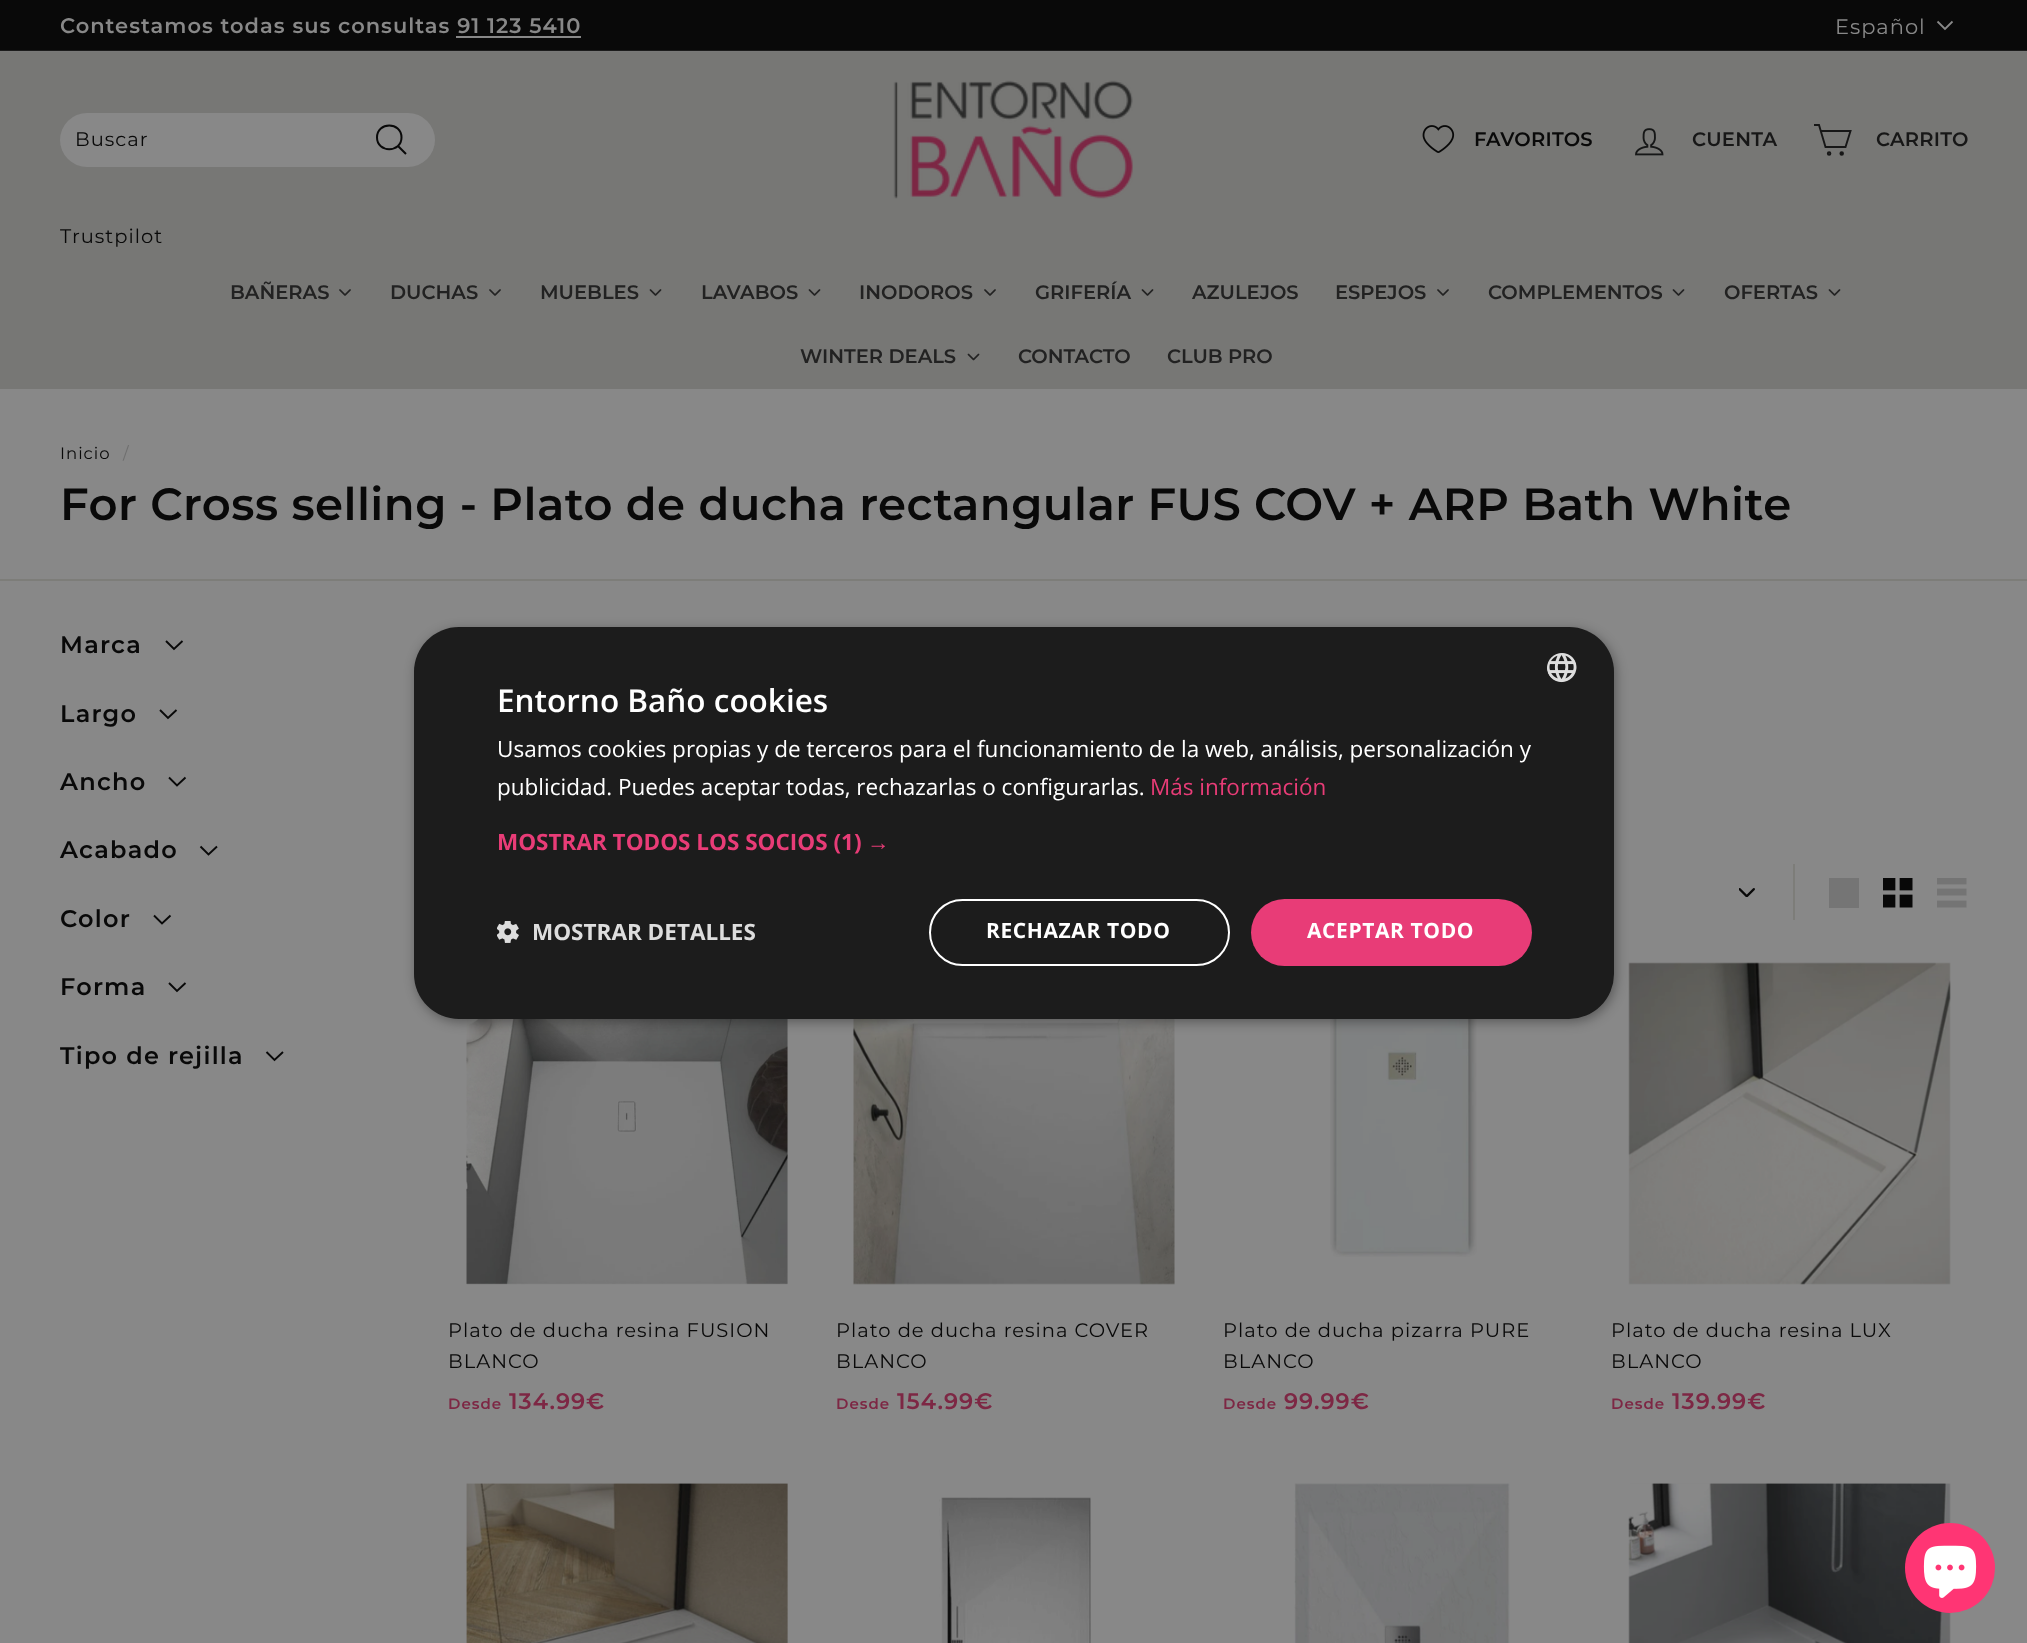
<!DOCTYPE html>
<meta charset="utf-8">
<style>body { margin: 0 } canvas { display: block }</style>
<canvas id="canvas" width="2027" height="1643"></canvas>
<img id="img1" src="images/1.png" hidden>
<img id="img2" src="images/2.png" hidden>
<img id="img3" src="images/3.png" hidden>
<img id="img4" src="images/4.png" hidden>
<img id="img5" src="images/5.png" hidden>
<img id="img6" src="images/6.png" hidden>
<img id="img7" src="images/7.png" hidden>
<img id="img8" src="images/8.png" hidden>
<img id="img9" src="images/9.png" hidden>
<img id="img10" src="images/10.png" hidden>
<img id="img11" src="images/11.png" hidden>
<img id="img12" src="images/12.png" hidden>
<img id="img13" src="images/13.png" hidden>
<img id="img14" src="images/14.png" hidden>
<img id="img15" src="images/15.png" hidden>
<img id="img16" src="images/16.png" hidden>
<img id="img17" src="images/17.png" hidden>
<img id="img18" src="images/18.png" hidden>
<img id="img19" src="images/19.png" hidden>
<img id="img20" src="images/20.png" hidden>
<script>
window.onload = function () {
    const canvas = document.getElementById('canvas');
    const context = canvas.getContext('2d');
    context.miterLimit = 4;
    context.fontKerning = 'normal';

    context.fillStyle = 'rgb(136, 136, 136)';
    context.fillRect(0, 0, 2027, 1643);
    context.fillStyle = 'rgb(9, 9, 9)';
    context.fillRect(0, 0, 2027, 50);
    context.fillStyle = 'rgb(28, 28, 28)';
    context.fillRect(0, 50, 2027, 1);
    context.fillStyle = 'rgb(136, 136, 136)';
    context.fillRect(456, 36, 125, 2);
    context.beginPath();
    context.moveTo(1937.5, 21.5);
    context.lineTo(1945, 29);
    context.lineTo(1952.5, 21.5);
    context.strokeStyle = 'rgb(136, 136, 136)';
    context.lineWidth = 1.8;
    context.stroke();
    context.fillStyle = 'rgb(121, 121, 120)';
    context.fillRect(0, 51, 2027, 1);
    context.fillStyle = 'rgb(119, 119, 117)';
    context.fillRect(0, 52, 2027, 337);
    context.fillStyle = 'rgb(136, 136, 136)';
    context.beginPath();
    context.roundRect(60, 113, 375, 54, 27);
    context.fill();
    context.beginPath();
    context.moveTo(401.5, 137.5);
    context.bezierCurveTo(401.5, 153, 377, 153, 377, 137.5);
    context.bezierCurveTo(377, 121.5, 401.5, 121.5, 401.5, 137.5);
    context.closePath();
    context.moveTo(406, 154);
    context.lineTo(398, 146);
    context.strokeStyle = 'rgb(9, 9, 9)';
    context.lineWidth = 2;
    context.stroke();
    context.drawImage(document.getElementById('img1'), 893, 80, 240, 119);
    context.drawImage(document.getElementById('img2'), 1422, 125, 33, 28);
    context.drawImage(document.getElementById('img3'), 1635, 128, 29, 28);
    context.beginPath();
    context.moveTo(1821, 131);
    context.lineTo(1850.5, 131);
    context.lineTo(1845.5, 147);
    context.lineTo(1825.5, 147);
    context.lineTo(1819, 125);
    context.lineTo(1814, 125);
    context.strokeStyle = 'rgb(23, 23, 23)';
    context.lineWidth = 1.9;
    context.stroke();
    context.beginPath();
    context.arc(1829.1, 153.5, 1.3, 0, 2 * Math.PI);
    context.stroke();
    context.fillStyle = 'rgb(23, 23, 23)';
    context.beginPath();
    context.arc(1841.7, 153.5, 1.3, 0, 2 * Math.PI);
    context.fill();
    context.stroke();
    context.drawImage(document.getElementById('img4'), 339, 289, 12, 7);
    context.drawImage(document.getElementById('img4'), 489, 289, 12, 7);
    context.drawImage(document.getElementById('img5'), 649, 289, 13, 7);
    context.drawImage(document.getElementById('img5'), 808, 289, 13, 7);
    context.drawImage(document.getElementById('img4'), 984, 289, 12, 7);
    context.drawImage(document.getElementById('img5'), 1141, 289, 13, 7);
    context.drawImage(document.getElementById('img4'), 1437, 289, 12, 7);
    context.drawImage(document.getElementById('img5'), 1672, 289, 13, 7);
    context.drawImage(document.getElementById('img5'), 1828, 289, 13, 7);
    context.drawImage(document.getElementById('img6'), 967, 353, 13, 8);
    context.fillStyle = 'rgb(125, 125, 121)';
    context.fillRect(0, 579, 2027, 2);
    context.beginPath();
    context.moveTo(166, 641);
    context.lineTo(174, 649);
    context.lineTo(182.5, 641);
    context.strokeStyle = 'rgb(9, 9, 9)';
    context.stroke();
    context.beginPath();
    context.moveTo(160, 710);
    context.lineTo(168, 718);
    context.lineTo(176.5, 710);
    context.stroke();
    context.beginPath();
    context.moveTo(169, 777.5);
    context.lineTo(177, 785.5);
    context.lineTo(185.5, 777.5);
    context.stroke();
    context.beginPath();
    context.moveTo(200.5, 846.5);
    context.lineTo(208.5, 854.5);
    context.lineTo(217, 846.5);
    context.stroke();
    context.beginPath();
    context.moveTo(154, 915.5);
    context.lineTo(162, 923.5);
    context.lineTo(170.5, 915.5);
    context.stroke();
    context.beginPath();
    context.moveTo(169, 983);
    context.lineTo(177, 991);
    context.lineTo(185.5, 983);
    context.stroke();
    context.beginPath();
    context.moveTo(266.5, 1052);
    context.lineTo(274.5, 1060);
    context.lineTo(283, 1052);
    context.stroke();
    context.fillRect(1793, 864, 2, 56);
    context.drawImage(document.getElementById('img7'), 1739, 888, 16, 9);
    context.fillStyle = 'rgb(117, 117, 117)';
    context.fillRect(1829, 878, 30, 30);
    context.drawImage(document.getElementById('img8'), 1883, 878, 30, 30);
    context.drawImage(document.getElementById('img9'), 1937, 878, 30, 30);
    context.drawImage(document.getElementById('img10'), 466, 1019, 322, 266);
    context.drawImage(document.getElementById('img11'), 853, 1019, 322, 266);
    context.drawImage(document.getElementById('img12'), 1330, 1019, 147, 238);
    context.drawImage(document.getElementById('img13'), 1628, 962, 323, 323);
    context.drawImage(document.getElementById('img14'), 466, 1483, 322, 160);
    context.drawImage(document.getElementById('img15'), 939, 1497, 152, 146);
    context.drawImage(document.getElementById('img16'), 1294, 1483, 216, 160);
    context.drawImage(document.getElementById('img17'), 1628, 1483, 323, 160);
    context.fillStyle = 'rgba(0, 0, 0, 0.35)';
    context.filter = 'blur(6px)';
    context.beginPath();
    context.roundRect(416, 630, 1200, 392, 45);
    context.fill();
    context.filter = 'none';
    context.fillStyle = 'rgb(28, 28, 28)';
    context.beginPath();
    context.roundRect(414, 627, 1200, 392, 45);
    context.fill();
    context.drawImage(document.getElementById('img18'), 1547, 653, 30, 30);
    context.drawImage(document.getElementById('img19'), 497, 921, 22, 22);
    context.beginPath();
    context.roundRect(930, 900, 299, 65, 32.5);
    context.strokeStyle = 'rgb(255, 255, 255)';
    context.lineWidth = 2;
    context.stroke();
    context.fillStyle = 'rgb(232, 60, 119)';
    context.beginPath();
    context.roundRect(1251, 899, 281, 67, 33.5);
    context.fill();
    context.fillStyle = 'rgb(255, 53, 116)';
    context.beginPath();
    context.arc(1950, 1568, 45, 0, 2 * Math.PI);
    context.fill();
    context.drawImage(document.getElementById('img20'), 1923, 1545, 54, 53);
    context.letterSpacing = '1px';
    context.font = '600 21px Montserrat';
    context.fillStyle = 'rgb(136, 136, 136)';
    context.fillText('Contestamos todas sus consultas 91 123 5410', 60, 33);
    context.font = '21px Montserrat';
    context.fillText('Español', 1835, 34);
    context.font = '19.5px Montserrat';
    context.fillStyle = 'rgb(9, 9, 9)';
    context.fillText('Buscar', 75, 146);
    context.letterSpacing = '0.25px';
    context.font = '600 19.5px Montserrat';
    context.fillText('FAVORITOS', 1474, 146);
    context.fillStyle = 'rgb(23, 23, 23)';
    context.fillText('CUENTA', 1692, 146);
    context.fillText('CARRITO', 1876, 146);
    context.letterSpacing = '1px';
    context.font = '19.5px Montserrat';
    context.fillStyle = 'rgb(9, 9, 9)';
    context.fillText('Trustpilot', 60, 243);
    context.letterSpacing = '0px';
    context.font = '600 19.5px Montserrat';
    context.fillStyle = 'rgb(34, 34, 34)';
    context.fillText('BAÑERAS', 230, 299);
    context.fillText('DUCHAS', 390, 299);
    context.fillText('MUEBLES', 540, 299);
    context.fillText('LAVABOS', 701, 299);
    context.fillText('INODOROS', 859, 299);
    context.fillText('GRIFERÍA', 1035, 299);
    context.fillText('AZULEJOS', 1192, 299);
    context.fillText('ESPEJOS', 1335, 299);
    context.fillText('COMPLEMENTOS', 1488, 299);
    context.fillText('OFERTAS', 1724, 299);
    context.fillText('WINTER DEALS', 800, 363);
    context.fillText('CONTACTO', 1018, 363);
    context.fillText('CLUB PRO', 1167, 363);
    context.letterSpacing = '1px';
    context.font = '16.5px Montserrat';
    context.fillStyle = 'rgb(9, 9, 9)';
    context.fillText('Inicio', 60, 459);
    context.fillStyle = 'rgb(111, 111, 111)';
    context.fillText('/', 123, 459);
    context.letterSpacing = '0.45px';
    context.font = '600 45px Montserrat';
    context.fillStyle = 'rgb(9, 9, 9)';
    context.fillText('For Cross selling - Plato de ducha rectangular FUS COV + ARP Bath White', 60, 520);
    context.letterSpacing = '1.25px';
    context.font = '600 24px Montserrat';
    context.fillText('Marca', 60, 653);
    context.fillText('Largo', 60, 722);
    context.fillText('Ancho', 60, 790);
    context.fillText('Acabado', 60, 858);
    context.fillText('Color', 60, 927);
    context.fillText('Forma', 60, 995);
    context.fillText('Tipo de rejilla', 60, 1064);
    context.letterSpacing = '1px';
    context.font = '19.5px Montserrat';
    context.fillText('Plato de ducha resina FUSION', 448, 1337);
    context.fillText('BLANCO', 448, 1368);
    context.font = '600 15px Montserrat';
    context.fillStyle = 'rgb(125, 39, 68)';
    context.fillText('Desde', 448, 1409);
    context.font = '600 22.5px Montserrat';
    context.fillText('134.99€', 509, 1409);
    context.font = '19.5px Montserrat';
    context.fillStyle = 'rgb(9, 9, 9)';
    context.fillText('Plato de ducha resina COVER', 836, 1337);
    context.fillText('BLANCO', 836, 1368);
    context.font = '600 15px Montserrat';
    context.fillStyle = 'rgb(125, 39, 68)';
    context.fillText('Desde', 836, 1409);
    context.font = '600 22.5px Montserrat';
    context.fillText('154.99€', 897, 1409);
    context.font = '19.5px Montserrat';
    context.fillStyle = 'rgb(9, 9, 9)';
    context.fillText('Plato de ducha pizarra PURE', 1223, 1337);
    context.fillText('BLANCO', 1223, 1368);
    context.font = '600 15px Montserrat';
    context.fillStyle = 'rgb(125, 39, 68)';
    context.fillText('Desde', 1223, 1409);
    context.font = '600 22.5px Montserrat';
    context.fillText('99.99€', 1284, 1409);
    context.font = '19.5px Montserrat';
    context.fillStyle = 'rgb(9, 9, 9)';
    context.fillText('Plato de ducha resina LUX', 1611, 1337);
    context.fillText('BLANCO', 1611, 1368);
    context.font = '600 15px Montserrat';
    context.fillStyle = 'rgb(125, 39, 68)';
    context.fillText('Desde', 1611, 1409);
    context.font = '600 22.5px Montserrat';
    context.fillText('139.99€', 1672, 1409);
    context.letterSpacing = '0px';
    context.font = '600 31.5px Open Sans';
    context.fillStyle = 'rgb(255, 255, 255)';
    context.fillText('Entorno Baño cookies', 497, 712);
    context.font = '22.5px Open Sans';
    context.fillText('Usamos cookies propias y de terceros para el funcionamiento de la web, análisis, personalización y', 497, 757);
    context.fillText('publicidad. Puedes aceptar todas, rechazarlas o configurarlas.', 497, 795);
    context.fillStyle = 'rgb(232, 60, 119)';
    context.fillText('Más información', 1150, 795);
    context.font = 'bold 22.5px Open Sans';
    context.fillText('MOSTRAR TODOS LOS SOCIOS (1)', 497, 850);
    context.font = 'bold 22.5px Liberation Sans';
    context.fillText('→', 867, 850);
    context.font = 'bold 22.5px Open Sans';
    context.fillStyle = 'rgb(221, 221, 221)';
    context.fillText('MOSTRAR DETALLES', 532, 940);
    context.letterSpacing = '0.6px';
    context.font = 'bold 21px Open Sans';
    context.fillStyle = 'rgb(255, 255, 255)';
    context.fillText('RECHAZAR TODO', 986, 938);
    context.fillText('ACEPTAR TODO', 1307, 938);
};
</script>
